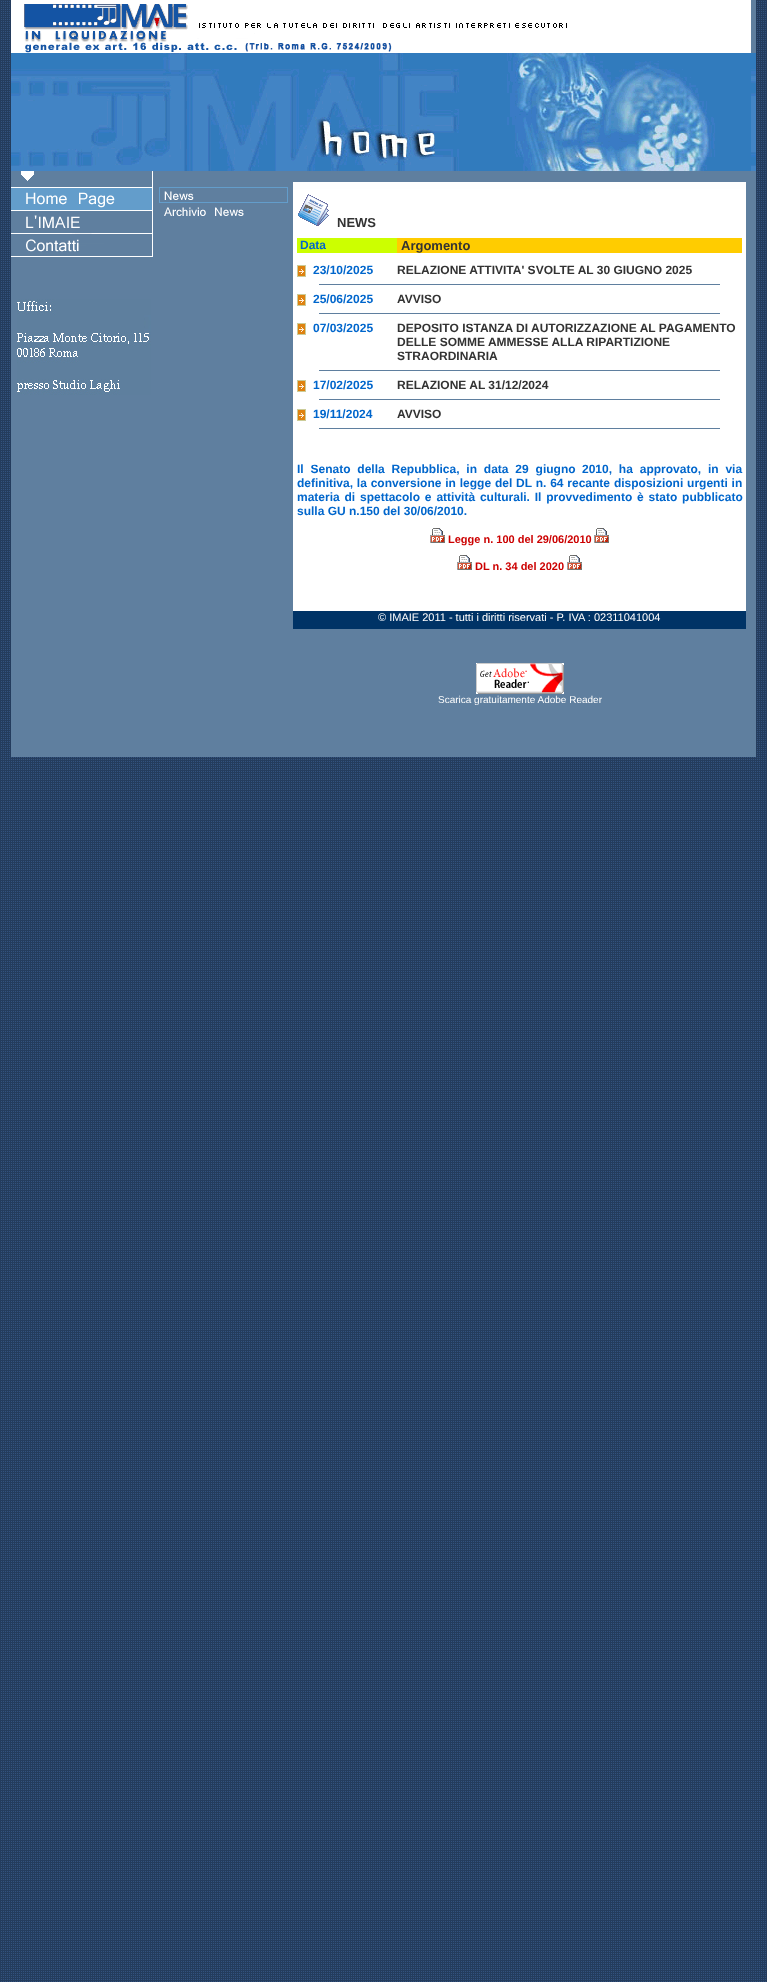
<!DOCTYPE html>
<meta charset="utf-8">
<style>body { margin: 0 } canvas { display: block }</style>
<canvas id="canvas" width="767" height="1982"></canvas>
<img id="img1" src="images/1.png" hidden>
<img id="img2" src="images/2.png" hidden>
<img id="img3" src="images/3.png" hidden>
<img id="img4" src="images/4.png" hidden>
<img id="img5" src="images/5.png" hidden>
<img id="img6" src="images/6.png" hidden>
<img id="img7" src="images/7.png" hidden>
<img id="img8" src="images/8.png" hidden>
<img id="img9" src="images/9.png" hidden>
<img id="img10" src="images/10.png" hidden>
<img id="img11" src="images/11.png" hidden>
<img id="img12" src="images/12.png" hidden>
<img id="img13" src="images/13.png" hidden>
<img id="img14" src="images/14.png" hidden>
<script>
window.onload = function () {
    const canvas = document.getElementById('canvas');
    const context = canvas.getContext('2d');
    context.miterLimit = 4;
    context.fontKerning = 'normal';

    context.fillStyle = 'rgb(255, 255, 255)';
    context.fillRect(0, 0, 767, 1982);
    context.drawImage(document.getElementById('img1'), 0, 0, 767, 1982);
    context.fillStyle = 'rgb(95, 127, 159)';
    context.fillRect(11, 0, 745, 757);
    context.drawImage(document.getElementById('img2'), 11, 0, 740, 53);
    context.drawImage(document.getElementById('img3'), 11, 53, 745, 118);
    context.drawImage(document.getElementById('img4'), 21, 171, 132, 16);
    context.drawImage(document.getElementById('img5'), 11, 187, 142, 23);
    context.drawImage(document.getElementById('img6'), 11, 210, 142, 24);
    context.drawImage(document.getElementById('img7'), 11, 234, 142, 23);
    context.drawImage(document.getElementById('img8'), 17, 299, 134, 96);
    context.fillStyle = 'rgb(254, 254, 254)';
    context.fillRect(293, 182, 453, 7);
    context.fillStyle = 'rgb(99, 157, 203)';
    context.fillRect(159, 187, 129, 16);
    context.drawImage(document.getElementById('img9'), 160, 188, 127, 14);
    context.drawImage(document.getElementById('img10'), 164, 207, 80, 9);
    context.fillStyle = 'rgb(255, 255, 255)';
    context.fillRect(293, 189, 453, 422);
    context.drawImage(document.getElementById('img11'), 298, 194, 31, 32);
    context.fillStyle = 'rgb(204, 255, 0)';
    context.fillRect(297, 238, 100, 15);
    context.fillStyle = 'rgb(255, 204, 0)';
    context.fillRect(397, 238, 345, 15);
    context.drawImage(document.getElementById('img12'), 297, 265, 9, 12);
    context.fillStyle = 'rgb(95, 127, 159)';
    context.fillRect(319, 284, 401, 1);
    context.drawImage(document.getElementById('img12'), 297, 294, 9, 12);
    context.fillRect(319, 313, 401, 1);
    context.drawImage(document.getElementById('img12'), 297, 323, 9, 12);
    context.fillRect(319, 370, 401, 1);
    context.drawImage(document.getElementById('img12'), 297, 380, 9, 12);
    context.fillRect(319, 399, 401, 1);
    context.drawImage(document.getElementById('img12'), 297, 409, 9, 12);
    context.fillRect(319, 428, 401, 1);
    context.drawImage(document.getElementById('img13'), 430, 528, 15, 15);
    context.drawImage(document.getElementById('img13'), 594, 528, 15, 15);
    context.drawImage(document.getElementById('img13'), 457, 555, 15, 15);
    context.drawImage(document.getElementById('img13'), 567, 555, 15, 15);
    context.fillStyle = 'rgb(0, 51, 102)';
    context.fillRect(293, 611, 453, 18);
    context.drawImage(document.getElementById('img14'), 476, 663, 88, 31);
    context.font = 'bold 13px Liberation Sans';
    context.fillStyle = 'rgb(51, 51, 51)';
    context.fillText('NEWS', 337, 227);
    context.font = 'bold 12px Liberation Sans';
    context.fillStyle = 'rgb(0, 102, 204)';
    context.fillText('Data', 300, 249);
    context.font = 'bold 13px Liberation Sans';
    context.fillStyle = 'rgb(51, 51, 51)';
    context.fillText('Argomento', 401, 250);
    context.font = 'bold 12px Liberation Sans';
    context.fillStyle = 'rgb(0, 102, 204)';
    context.fillText('23/10/2025', 313, 274);
    context.fillStyle = 'rgb(51, 51, 51)';
    context.fillText('RELAZIONE ATTIVITA\' SVOLTE AL 30 GIUGNO 2025', 397, 274);
    context.fillStyle = 'rgb(0, 102, 204)';
    context.fillText('25/06/2025', 313, 303);
    context.fillStyle = 'rgb(51, 51, 51)';
    context.fillText('AVVISO', 397, 303);
    context.fillStyle = 'rgb(0, 102, 204)';
    context.fillText('07/03/2025', 313, 332);
    context.fillStyle = 'rgb(51, 51, 51)';
    context.fillText('DEPOSITO ISTANZA DI AUTORIZZAZIONE AL PAGAMENTO', 397, 332);
    context.fillText('DELLE SOMME AMMESSE ALLA RIPARTIZIONE', 397, 346);
    context.fillText('STRAORDINARIA', 397, 360);
    context.fillStyle = 'rgb(0, 102, 204)';
    context.fillText('17/02/2025', 313, 389);
    context.fillStyle = 'rgb(51, 51, 51)';
    context.fillText('RELAZIONE AL 31/12/2024', 397, 389);
    context.fillStyle = 'rgb(0, 102, 204)';
    context.fillText('19/11/2024', 313, 418);
    context.fillStyle = 'rgb(51, 51, 51)';
    context.fillText('AVVISO', 397, 418);
    context.wordSpacing = '3.5px';
    context.fillStyle = 'rgb(0, 102, 204)';
    context.fillText('Il Senato della Repubblica, in data 29 giugno', 297, 473);
    context.fillText('2010, ha approvato, in via', 582, 473);
    context.wordSpacing = '0.5px';
    context.fillText('definitiva, la conversione in legge del DL n. 64 recante disposizioni urgenti in', 297, 487);
    context.wordSpacing = '1.5px';
    context.fillText('materia di spettacolo e attività culturali. Il provvedimento è stato pubblicato', 297, 501);
    context.wordSpacing = '0px';
    context.fillText('sulla GU n.150 del 30/06/2010.', 297, 515);
    context.font = 'bold 11px Liberation Sans';
    context.fillStyle = 'rgb(204, 0, 0)';
    context.fillText('Legge n. 100 del 29/06/2010', 448, 543);
    context.fillText('DL n. 34 del 2020', 475, 570);
    context.font = '11px Liberation Sans';
    context.fillStyle = 'rgb(255, 255, 255)';
    context.fillText('© IMAIE 2011 - tutti i diritti riservati - P. IVA : 02311041004', 378, 621);
    context.font = '10px Liberation Sans';
    context.fillText('Scarica gratuitamente Adobe Reader', 438, 703);
};
</script>
